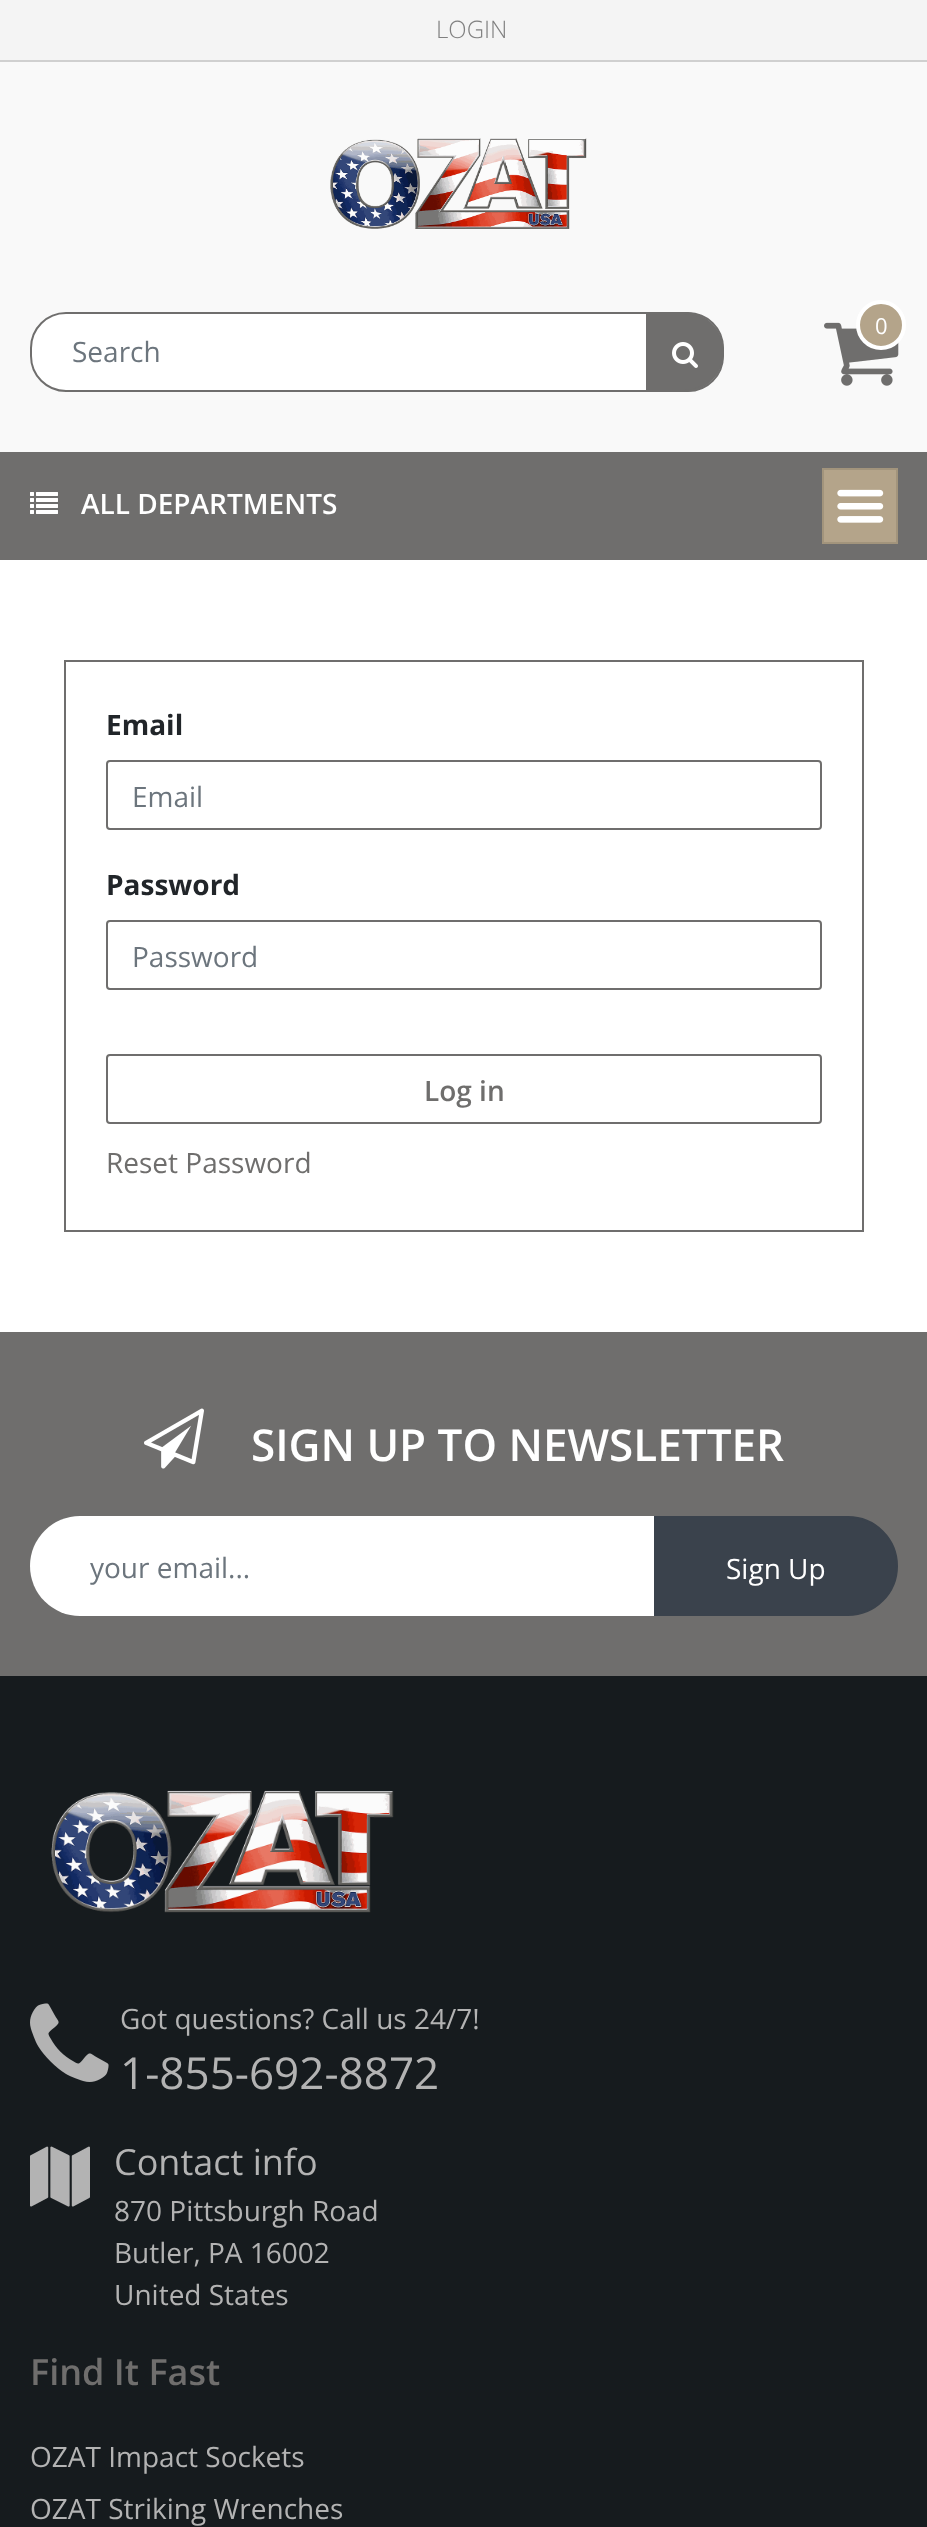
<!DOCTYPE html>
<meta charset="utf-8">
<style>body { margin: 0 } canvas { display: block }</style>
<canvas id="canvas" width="927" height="2527"></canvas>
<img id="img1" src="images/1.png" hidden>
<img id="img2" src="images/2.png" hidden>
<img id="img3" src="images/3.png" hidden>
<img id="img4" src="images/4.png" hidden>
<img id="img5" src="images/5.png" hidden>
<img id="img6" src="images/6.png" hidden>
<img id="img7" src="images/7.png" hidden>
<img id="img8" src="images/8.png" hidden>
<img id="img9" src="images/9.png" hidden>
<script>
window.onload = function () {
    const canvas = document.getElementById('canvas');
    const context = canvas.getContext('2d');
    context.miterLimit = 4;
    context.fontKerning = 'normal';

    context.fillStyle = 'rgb(255, 255, 255)';
    context.fillRect(0, 0, 927, 2527);
    context.fillStyle = 'rgb(249, 249, 249)';
    context.fillRect(0, 62, 927, 390);
    context.fillStyle = 'rgb(244, 244, 244)';
    context.fillRect(0, 0, 927, 60);
    context.fillStyle = 'rgb(208, 208, 208)';
    context.fillRect(0, 60, 927, 2);
    context.drawImage(document.getElementById('img1'), 330, 138, 257, 91);
    context.drawImage(document.getElementById('img2'), 824, 322, 75, 64);
    context.fillStyle = 'rgb(180, 164, 138)';
    context.beginPath();
    context.arc(881, 325, 23, 0, 2 * Math.PI);
    context.fill();
    context.strokeStyle = 'rgb(255, 255, 255)';
    context.lineWidth = 4;
    context.stroke();
    context.fillStyle = 'rgb(255, 255, 255)';
    context.beginPath();
    context.roundRect(31, 313, 692, 78, 35);
    context.fill();
    context.strokeStyle = 'rgb(111, 110, 109)';
    context.lineWidth = 2;
    context.stroke();
    context.fillStyle = 'rgb(111, 110, 109)';
    context.beginPath();
    context.roundRect(647, 313, 76, 78, [0, 39, 39, 0]);
    context.fill();
    context.stroke();
    context.drawImage(document.getElementById('img3'), 672, 342, 26, 26);
    context.fillRect(0, 452, 927, 108);
    context.drawImage(document.getElementById('img4'), 30, 492, 28, 22);
    context.fillStyle = 'rgb(180, 164, 138)';
    context.beginPath();
    context.rect(823, 469, 74, 74);
    context.fill();
    context.strokeStyle = 'rgb(162, 148, 124)';
    context.stroke();
    context.drawImage(document.getElementById('img5'), 837, 489, 47, 34);
    context.strokeStyle = 'rgb(111, 110, 109)';
    context.strokeRect(65, 661, 798, 570);
    context.beginPath();
    context.roundRect(107, 761, 714, 68, 3);
    context.stroke();
    context.beginPath();
    context.roundRect(107, 921, 714, 68, 3);
    context.stroke();
    context.beginPath();
    context.roundRect(107, 1055, 714, 68, 3);
    context.stroke();
    context.fillStyle = 'rgb(111, 110, 109)';
    context.fillRect(0, 1332, 927, 344);
    context.drawImage(document.getElementById('img6'), 144, 1408, 60, 61);
    context.fillStyle = 'rgb(255, 255, 255)';
    context.beginPath();
    context.roundRect(30, 1516, 694, 100, 50);
    context.fill();
    context.fillStyle = 'rgb(58, 66, 76)';
    context.beginPath();
    context.roundRect(655, 1517, 242, 98, [0, 49, 49, 0]);
    context.fill();
    context.strokeStyle = 'rgb(58, 66, 76)';
    context.stroke();
    context.fillStyle = 'rgb(22, 27, 30)';
    context.fillRect(0, 1676, 927, 851);
    context.drawImage(document.getElementById('img7'), 51, 1790, 343, 123);
    context.drawImage(document.getElementById('img8'), 30, 2003, 79, 79);
    context.drawImage(document.getElementById('img9'), 30, 2146, 60, 61);
    context.font = '300 24px Open Sans';
    context.fillStyle = 'rgb(128, 128, 128)';
    context.fillText('LOGIN', 436, 38);
    context.font = '22px Open Sans';
    context.fillStyle = 'rgb(255, 255, 255)';
    context.fillText('0', 875, 334);
    context.font = '28px Open Sans';
    context.fillStyle = 'rgb(108, 117, 125)';
    context.fillText('Search', 72, 362);
    context.font = '600 28px Open Sans';
    context.fillStyle = 'rgb(255, 255, 255)';
    context.fillText('ALL DEPARTMENTS', 81, 514);
    context.font = 'bold 28px Open Sans';
    context.fillStyle = 'rgb(33, 37, 41)';
    context.fillText('Email', 106, 735);
    context.font = '28px Open Sans';
    context.fillStyle = 'rgb(108, 117, 125)';
    context.fillText('Email', 132, 807);
    context.font = 'bold 28px Open Sans';
    context.fillStyle = 'rgb(33, 37, 41)';
    context.fillText('Password', 106, 895);
    context.font = '28px Open Sans';
    context.fillStyle = 'rgb(108, 117, 125)';
    context.fillText('Password', 132, 967);
    context.font = '600 28px Open Sans';
    context.fillStyle = 'rgb(111, 110, 109)';
    context.fillText('Log in', 424, 1101);
    context.font = '28px Open Sans';
    context.fillText('Reset Password', 106, 1173);
    context.font = '600 44px Open Sans';
    context.fillStyle = 'rgb(255, 255, 255)';
    context.fillText('SIGN UP TO NEWSLETTER', 251, 1461);
    context.font = '28px Open Sans';
    context.fillStyle = 'rgb(108, 117, 125)';
    context.fillText('your email...', 90, 1578);
    context.fillStyle = 'rgb(255, 255, 255)';
    context.fillText('Sign Up', 726, 1579);
    context.fillStyle = 'rgb(179, 179, 179)';
    context.fillText('Got questions? Call us 24/7!', 120, 2029);
    context.font = '44px Open Sans';
    context.fillText('1-855-692-8872', 120, 2089);
    context.font = '36px Open Sans';
    context.fillText('Contact info', 114, 2175);
    context.font = '28px Open Sans';
    context.fillText('870 Pittsburgh Road', 114, 2221);
    context.fillText('Butler, PA 16002', 114, 2263);
    context.fillText('United States', 114, 2305);
    context.font = '600 36px Open Sans';
    context.fillStyle = 'rgb(111, 110, 109)';
    context.fillText('Find It Fast', 30, 2385);
    context.font = '28px Open Sans';
    context.fillStyle = 'rgb(179, 179, 179)';
    context.fillText('OZAT Impact Sockets', 30, 2467);
    context.fillText('OZAT Striking Wrenches', 30, 2519);
};
</script>
